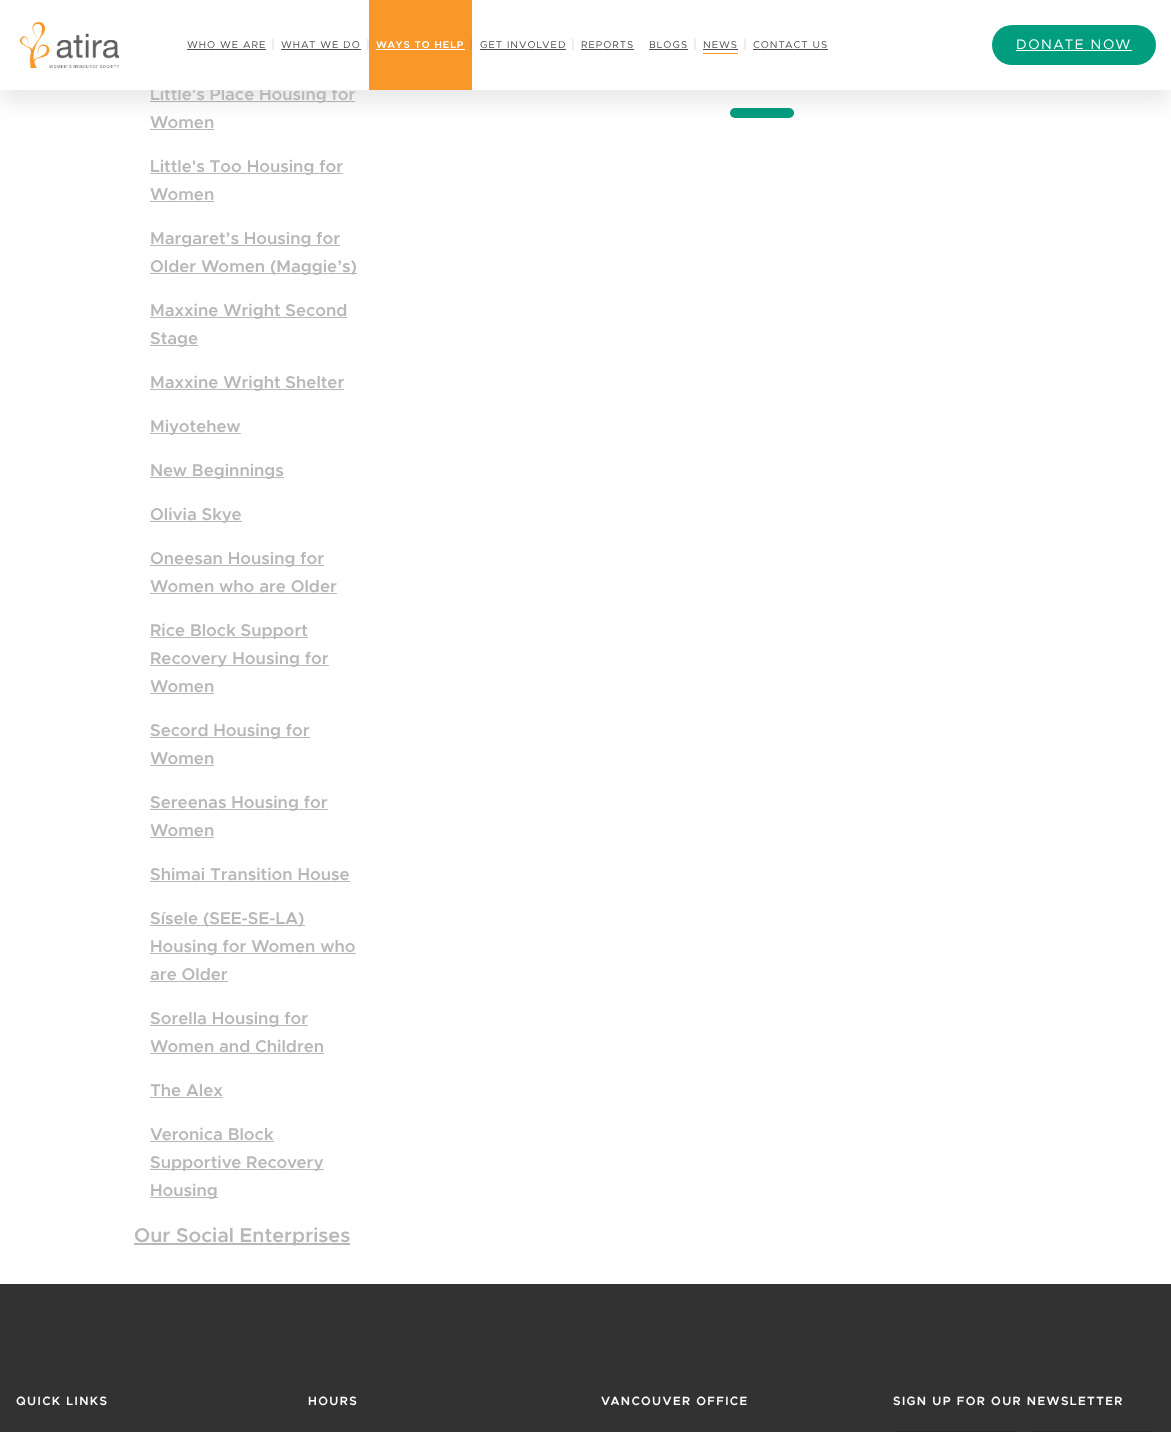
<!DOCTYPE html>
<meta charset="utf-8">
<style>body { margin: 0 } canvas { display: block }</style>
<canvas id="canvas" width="1171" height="1432"></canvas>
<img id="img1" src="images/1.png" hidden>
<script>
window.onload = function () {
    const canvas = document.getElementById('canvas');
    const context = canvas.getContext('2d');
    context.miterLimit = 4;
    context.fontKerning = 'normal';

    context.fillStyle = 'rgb(255, 255, 255)';
    context.fillRect(0, 0, 1171, 1432);
    context.fillStyle = 'rgb(184, 184, 185)';
    context.fillRect(150, 101, 205, 1);
    context.fillRect(150, 129, 64, 1);
    context.fillStyle = 'rgb(0, 157, 126)';
    context.beginPath();
    context.roundRect(730, 108, 64, 10, 5);
    context.fill();
    context.fillStyle = 'rgba(0, 0, 0, 0.1)';
    context.filter = 'blur(12.5px)';
    context.beginPath();
    context.rect(0, 10, 1171, 90);
    context.fill();
    context.filter = 'none';
    context.fillStyle = 'rgb(184, 184, 185)';
    context.fillRect(150, 173, 193, 1);
    context.fillRect(150, 201, 64, 1);
    context.fillRect(150, 245, 190, 1);
    context.fillRect(150, 273, 207, 1);
    context.fillRect(150, 317, 197, 1);
    context.fillRect(150, 345, 48, 1);
    context.fillRect(150, 389, 194, 1);
    context.fillRect(150, 433, 91, 1);
    context.fillRect(150, 477, 134, 1);
    context.fillRect(150, 521, 92, 1);
    context.fillRect(150, 565, 174, 1);
    context.fillRect(150, 593, 187, 1);
    context.fillRect(150, 637, 158, 1);
    context.fillRect(150, 665, 179, 1);
    context.fillRect(150, 693, 64, 1);
    context.fillRect(150, 737, 160, 1);
    context.fillRect(150, 765, 64, 1);
    context.fillRect(150, 809, 178, 1);
    context.fillRect(150, 837, 64, 1);
    context.fillRect(150, 881, 200, 1);
    context.fillRect(150, 925, 155, 1);
    context.fillRect(150, 953, 206, 1);
    context.fillRect(150, 981, 78, 1);
    context.fillRect(150, 1025, 158, 1);
    context.fillRect(150, 1053, 174, 1);
    context.fillRect(150, 1097, 73, 1);
    context.fillRect(150, 1141, 124, 1);
    context.fillRect(150, 1169, 174, 1);
    context.fillRect(150, 1197, 68, 1);
    context.fillRect(134, 1243, 216, 2);
    context.fillStyle = 'rgb(50, 50, 50)';
    context.fillRect(0, 1284, 1171, 148);
    context.fillStyle = 'rgb(40, 40, 40)';
    context.beginPath();
    context.roundRect(893, 1431, 126, 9, 8);
    context.fill();
    context.beginPath();
    context.roundRect(1029, 1431, 126, 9, 8);
    context.fill();
    context.font = '600 17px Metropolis';
    context.fillStyle = 'rgb(184, 184, 185)';
    context.fillText('Little\'s Place Housing for', 150, 100);
    context.fillStyle = 'rgb(255, 255, 255)';
    context.fillRect(0, 0, 1171, 90);
    context.fillStyle = 'rgb(0, 157, 126)';
    context.beginPath();
    context.roundRect(992, 25, 164, 40, 20);
    context.fill();
    context.letterSpacing = '1.5px';
    context.font = '14px Metropolis';
    context.fillStyle = 'rgb(255, 255, 255)';
    context.fillText('DONATE NOW', 1016, 49);
    context.fillRect(1016, 50, 116, 1);
    context.letterSpacing = '1px';
    context.font = '10px Metropolis';
    context.fillStyle = 'rgb(77, 77, 79)';
    context.fillText('CONTACT US', 753, 48);
    context.fillRect(753, 49, 75, 1);
    context.font = '14px Metropolis';
    context.fillStyle = 'rgb(219, 219, 220)';
    context.fillText('|', 743, 49);
    context.fillStyle = 'rgb(248, 152, 40)';
    context.fillRect(703, 53, 35, 1);
    context.font = '10px Metropolis';
    context.fillStyle = 'rgb(77, 77, 79)';
    context.fillText('NEWS', 703, 48);
    context.fillRect(703, 49, 35, 1);
    context.font = '14px Metropolis';
    context.fillStyle = 'rgb(219, 219, 220)';
    context.fillText('|', 693, 49);
    context.font = '10px Metropolis';
    context.fillStyle = 'rgb(77, 77, 79)';
    context.fillText('BLOGS', 649, 48);
    context.fillRect(649, 49, 39, 1);
    context.fillText('REPORTS', 581, 48);
    context.fillRect(581, 49, 53, 1);
    context.font = '14px Metropolis';
    context.fillStyle = 'rgb(219, 219, 220)';
    context.fillText('|', 571, 49);
    context.font = '10px Metropolis';
    context.fillStyle = 'rgb(77, 77, 79)';
    context.fillText('GET INVOLVED', 480, 48);
    context.fillRect(480, 49, 86, 1);
    context.fillStyle = 'rgb(248, 152, 40)';
    context.fillRect(369, 0, 103, 90);
    context.font = '14px Metropolis';
    context.fillStyle = 'rgb(214, 137, 48)';
    context.fillText('|', 469, 49);
    context.font = '600 10px Metropolis';
    context.fillStyle = 'rgb(255, 255, 255)';
    context.fillText('WAYS TO HELP', 376, 48);
    context.fillRect(376, 49, 89, 1);
    context.font = '14px Metropolis';
    context.fillStyle = 'rgb(219, 219, 220)';
    context.fillText('|', 366, 49);
    context.font = '10px Metropolis';
    context.fillStyle = 'rgb(77, 77, 79)';
    context.fillText('WHAT WE DO', 281, 48);
    context.fillRect(281, 49, 80, 1);
    context.font = '14px Metropolis';
    context.fillStyle = 'rgb(219, 219, 220)';
    context.fillText('|', 271, 49);
    context.font = '10px Metropolis';
    context.fillStyle = 'rgb(77, 77, 79)';
    context.fillText('WHO WE ARE', 187, 48);
    context.fillRect(187, 49, 79, 1);
    context.drawImage(document.getElementById('img1'), 19, 21, 101, 48);
    context.letterSpacing = '0px';
    context.font = '600 17px Metropolis';
    context.fillStyle = 'rgb(184, 184, 185)';
    context.fillText('Women', 150, 128);
    context.fillText('Little\'s Too Housing for', 150, 172);
    context.fillText('Women', 150, 200);
    context.fillText('Margaret’s Housing for', 150, 244);
    context.fillText('Older Women (Maggie’s)', 150, 272);
    context.fillText('Maxxine Wright Second', 150, 316);
    context.fillText('Stage', 150, 344);
    context.fillText('Maxxine Wright Shelter', 150, 388);
    context.fillText('Miyotehew', 150, 432);
    context.fillText('New Beginnings', 150, 476);
    context.fillText('Olivia Skye', 150, 520);
    context.fillText('Oneesan Housing for', 150, 564);
    context.fillText('Women who are Older', 150, 592);
    context.fillText('Rice Block Support', 150, 636);
    context.fillText('Recovery Housing for', 150, 664);
    context.fillText('Women', 150, 692);
    context.fillText('Secord Housing for', 150, 736);
    context.fillText('Women', 150, 764);
    context.fillText('Sereenas Housing for', 150, 808);
    context.fillText('Women', 150, 836);
    context.fillText('Shimai Transition House', 150, 880);
    context.fillText('Sísele (SEE-SE-LA)', 150, 924);
    context.fillText('Housing for Women who', 150, 952);
    context.fillText('are Older', 150, 980);
    context.fillText('Sorella Housing for', 150, 1024);
    context.fillText('Women and Children', 150, 1052);
    context.fillText('The Alex', 150, 1096);
    context.fillText('Veronica Block', 150, 1140);
    context.fillText('Supportive Recovery', 150, 1168);
    context.fillText('Housing', 150, 1196);
    context.font = '600 20px Metropolis';
    context.fillText('Our Social Enterprises', 134, 1242);
    context.letterSpacing = '1.4px';
    context.font = '600 12px Metropolis';
    context.fillStyle = 'rgb(255, 255, 255)';
    context.fillText('QUICK LINKS', 16, 1405);
    context.fillText('HOURS', 308, 1405);
    context.fillText('VANCOUVER OFFICE', 601, 1405);
    context.fillText('SIGN UP FOR OUR NEWSLETTER', 893, 1405);
};
</script>
